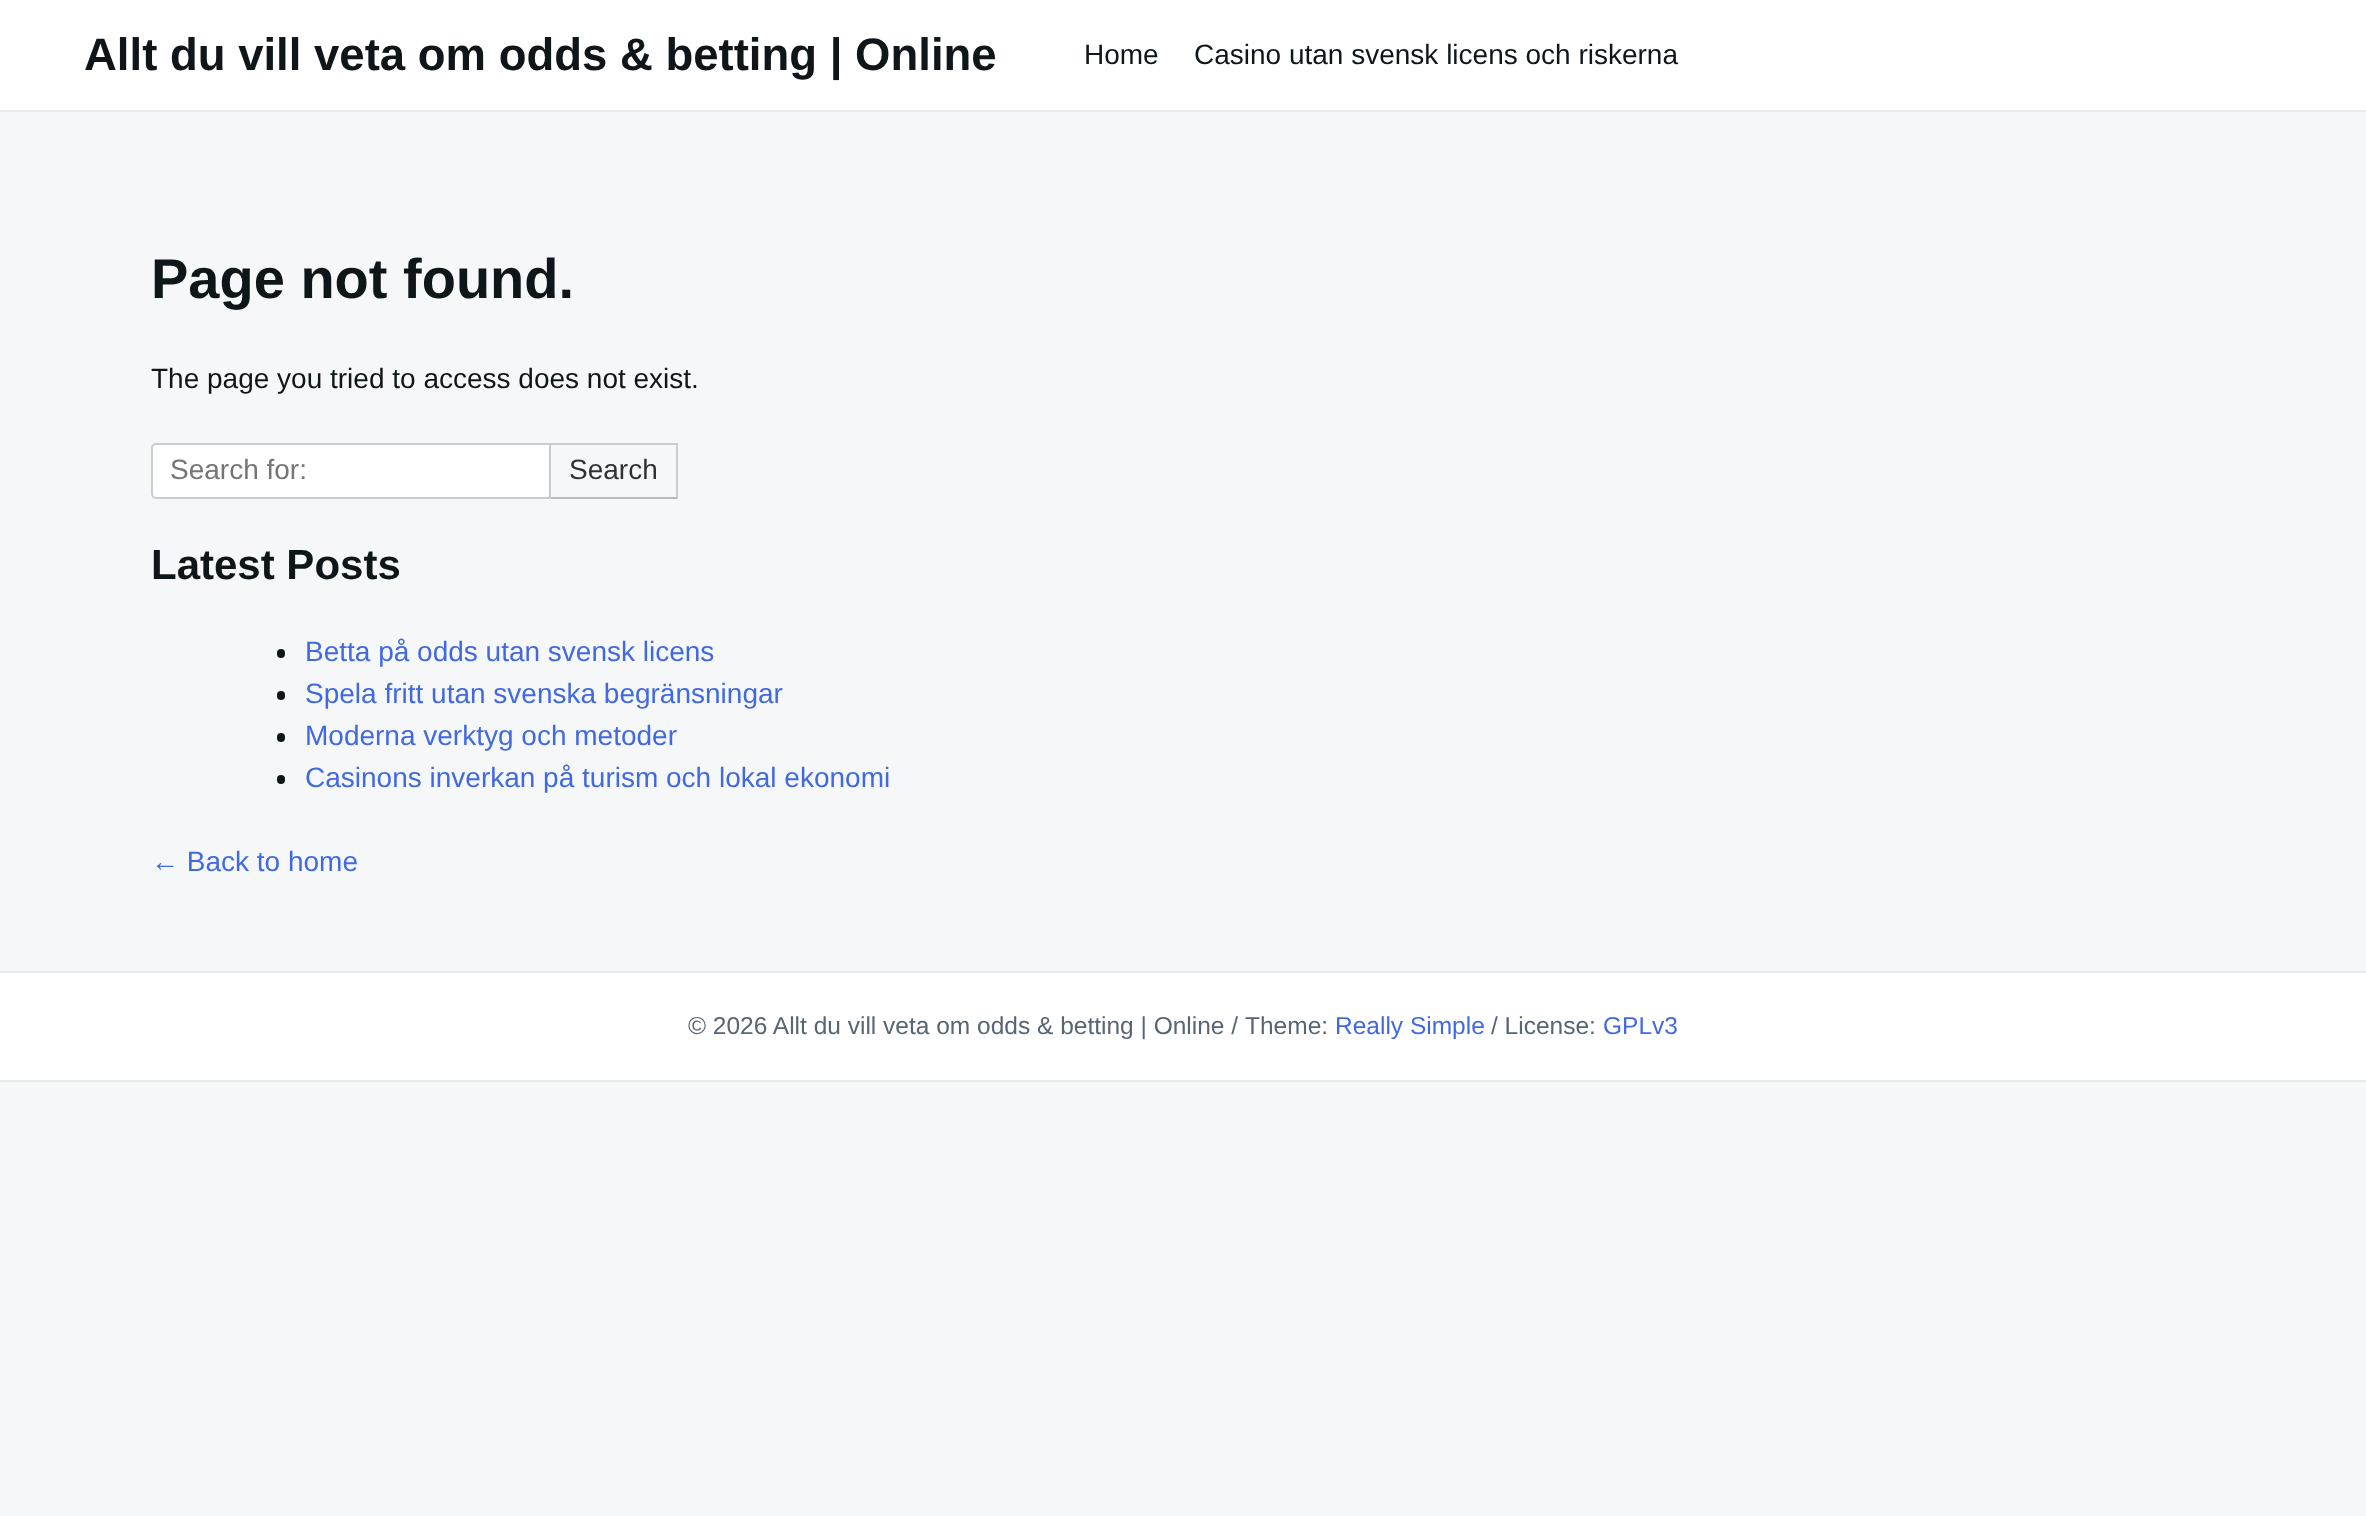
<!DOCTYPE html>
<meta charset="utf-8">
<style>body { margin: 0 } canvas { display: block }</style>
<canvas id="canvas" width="2366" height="1516"></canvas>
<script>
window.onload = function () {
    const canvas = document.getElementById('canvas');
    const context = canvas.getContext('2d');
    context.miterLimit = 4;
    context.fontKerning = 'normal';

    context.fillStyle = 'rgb(245, 247, 248)';
    context.fillRect(0, 0, 2366, 1516);
    context.fillStyle = 'rgb(255, 255, 255)';
    context.fillRect(0, 0, 2366, 110);
    context.fillStyle = 'rgb(233, 235, 235)';
    context.fillRect(0, 110, 2366, 2);
    context.fillStyle = 'rgb(255, 255, 255)';
    context.beginPath();
    context.roundRect(152, 444, 398, 54, [4, 0, 0, 4]);
    context.fill();
    context.strokeStyle = 'rgb(204, 204, 204)';
    context.lineWidth = 2;
    context.stroke();
    context.fillStyle = 'rgb(204, 204, 204)';
    context.fillRect(551, 443, 126, 2);
    context.fillRect(676, 443, 2, 56);
    context.fillStyle = 'rgb(187, 187, 187)';
    context.fillRect(551, 497, 126, 2);
    context.fillStyle = 'rgb(15, 22, 26)';
    context.beginPath();
    context.roundRect(277, 649, 8, 9, 4);
    context.fill();
    context.beginPath();
    context.roundRect(277, 691, 8, 9, 4);
    context.fill();
    context.beginPath();
    context.roundRect(277, 733, 8, 9, 4);
    context.fill();
    context.beginPath();
    context.roundRect(277, 775, 8, 9, 4);
    context.fill();
    context.fillStyle = 'rgb(255, 255, 255)';
    context.fillRect(0, 973, 2366, 107);
    context.fillStyle = 'rgb(233, 235, 235)';
    context.fillRect(0, 971, 2366, 2);
    context.fillRect(0, 1080, 2366, 2);
    context.font = 'bold 45.5px Liberation Sans';
    context.fillStyle = 'rgb(15, 22, 26)';
    context.fillText('Allt du vill veta om odds & betting | Online', 84, 70);
    context.font = '28px Liberation Sans';
    context.fillText('Home', 1084, 64);
    context.fillText('Casino utan svensk licens och riskerna', 1194, 64);
    context.font = 'bold 56px Liberation Sans';
    context.fillText('Page not found.', 151, 298);
    context.font = '28px Liberation Sans';
    context.fillText('The page you tried to access does not exist.', 151, 388);
    context.fillStyle = 'rgb(117, 117, 117)';
    context.fillText('Search for:', 170, 479);
    context.fillStyle = 'rgb(49, 49, 50)';
    context.fillText('Search', 569, 479);
    context.font = 'bold 42px Liberation Sans';
    context.fillStyle = 'rgb(15, 22, 26)';
    context.fillText('Latest Posts', 151, 579);
    context.font = '28px Liberation Sans';
    context.fillStyle = 'rgb(65, 105, 225)';
    context.fillText('Betta på odds utan svensk licens', 305, 661);
    context.fillText('Spela fritt utan svenska begränsningar', 305, 703);
    context.fillText('Moderna verktyg och metoder', 305, 745);
    context.fillText('Casinons inverkan på turism och lokal ekonomi', 305, 787);
    context.fillText('← Back to home', 151, 871);
    context.font = '24.5px Liberation Sans';
    context.fillStyle = 'rgb(88, 102, 116)';
    context.fillText('© 2026 Allt du vill veta om odds & betting | Online /', 688, 1034);
    context.fillText('Theme:', 1245, 1034);
    context.fillStyle = 'rgb(65, 105, 225)';
    context.fillText('Really Simple', 1335, 1034);
    context.fillStyle = 'rgb(88, 102, 116)';
    context.fillText('/ License:', 1491, 1034);
    context.fillStyle = 'rgb(65, 105, 225)';
    context.fillText('GPLv3', 1603, 1034);
};
</script>
